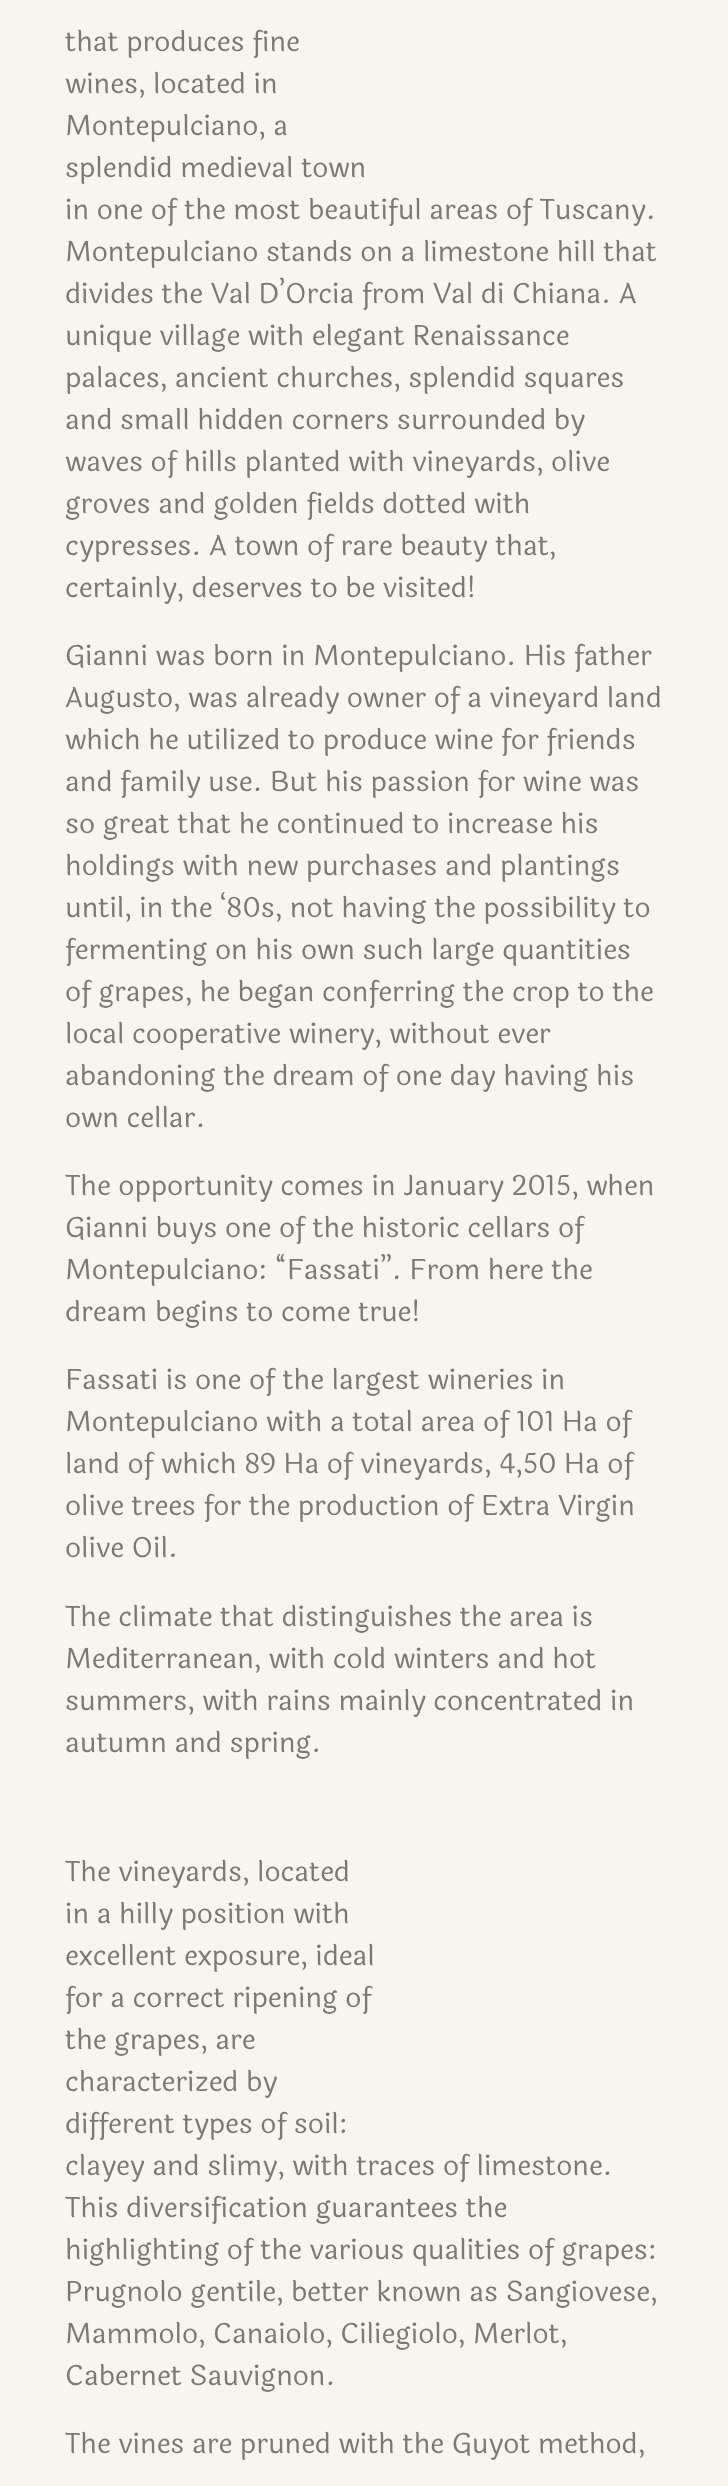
<!DOCTYPE html>
<meta charset="utf-8">
<style>body { margin: 0 } canvas { display: block }</style>
<canvas id="canvas" width="728" height="2486"></canvas>
<script>
window.onload = function () {
    const canvas = document.getElementById('canvas');
    const context = canvas.getContext('2d');
    context.miterLimit = 4;
    context.fontKerning = 'normal';

    context.fillStyle = 'rgb(247, 245, 237)';
    context.fillRect(0, 0, 728, 2486);
    context.font = '28px Laila';
    context.fillStyle = 'rgb(122, 121, 118)';
    context.fillText('that produces fine', 65, 51);
    context.fillText('wines, located in', 65, 93);
    context.fillText('Montepulciano, a', 65, 135);
    context.fillText('splendid medieval town', 65, 177);
    context.fillText('in one of the most beautiful areas of Tuscany.', 65, 219);
    context.fillText('Montepulciano stands on a limestone hill that', 65, 261);
    context.fillText('divides the Val D’Orcia from Val di Chiana. A', 65, 303);
    context.fillText('unique village with elegant Renaissance', 65, 345);
    context.fillText('palaces, ancient churches, splendid squares', 65, 387);
    context.fillText('and small hidden corners surrounded by', 65, 429);
    context.fillText('waves of hills planted with vineyards, olive', 65, 471);
    context.fillText('groves and golden fields dotted with', 65, 513);
    context.fillText('cypresses. A town of rare beauty that,', 65, 555);
    context.fillText('certainly, deserves to be visited!', 65, 597);
    context.fillText('Gianni was born in Montepulciano. His father', 65, 665);
    context.fillText('Augusto, was already owner of a vineyard land', 65, 707);
    context.fillText('which he utilized to produce wine for friends', 65, 749);
    context.fillText('and family use. But his passion for wine was', 65, 791);
    context.fillText('so great that he continued to increase his', 65, 833);
    context.fillText('holdings with new purchases and plantings', 65, 875);
    context.fillText('until, in the ‘80s, not having the possibility to', 65, 917);
    context.fillText('fermenting on his own such large quantities', 65, 959);
    context.fillText('of grapes, he began conferring the crop to the', 65, 1001);
    context.fillText('local cooperative winery, without ever', 65, 1043);
    context.fillText('abandoning the dream of one day having his', 65, 1085);
    context.fillText('own cellar.', 65, 1127);
    context.fillText('The opportunity comes in January 2015, when', 65, 1195);
    context.fillText('Gianni buys one of the historic cellars of', 65, 1237);
    context.fillText('Montepulciano: “Fassati”. From here the', 65, 1279);
    context.fillText('dream begins to come true!', 65, 1321);
    context.fillText('Fassati is one of the largest wineries in', 65, 1389);
    context.fillText('Montepulciano with a total area of 101 Ha of', 65, 1431);
    context.fillText('land of which 89 Ha of vineyards, 4,50 Ha of', 65, 1473);
    context.fillText('olive trees for the production of Extra Virgin', 65, 1515);
    context.fillText('olive Oil.', 65, 1557);
    context.fillText('The climate that distinguishes the area is', 65, 1626);
    context.fillText('Mediterranean, with cold winters and hot', 65, 1668);
    context.fillText('summers, with rains mainly concentrated in', 65, 1710);
    context.fillText('autumn and spring.', 65, 1752);
    context.fillText('The vineyards, located', 65, 1881);
    context.fillText('in a hilly position with', 65, 1923);
    context.fillText('excellent exposure, ideal', 65, 1965);
    context.fillText('for a correct ripening of', 65, 2007);
    context.fillText('the grapes, are', 65, 2049);
    context.fillText('characterized by', 65, 2091);
    context.fillText('different types of soil:', 65, 2133);
    context.fillText('clayey and slimy, with traces of limestone.', 65, 2175);
    context.fillText('This diversification guarantees the', 65, 2217);
    context.fillText('highlighting of the various qualities of grapes:', 65, 2259);
    context.fillText('Prugnolo gentile, better known as Sangiovese,', 65, 2301);
    context.fillText('Mammolo, Canaiolo, Ciliegiolo, Merlot,', 65, 2343);
    context.fillText('Cabernet Sauvignon.', 65, 2385);
    context.fillText('The vines are pruned with the Guyot method,', 65, 2453);
};
</script>
